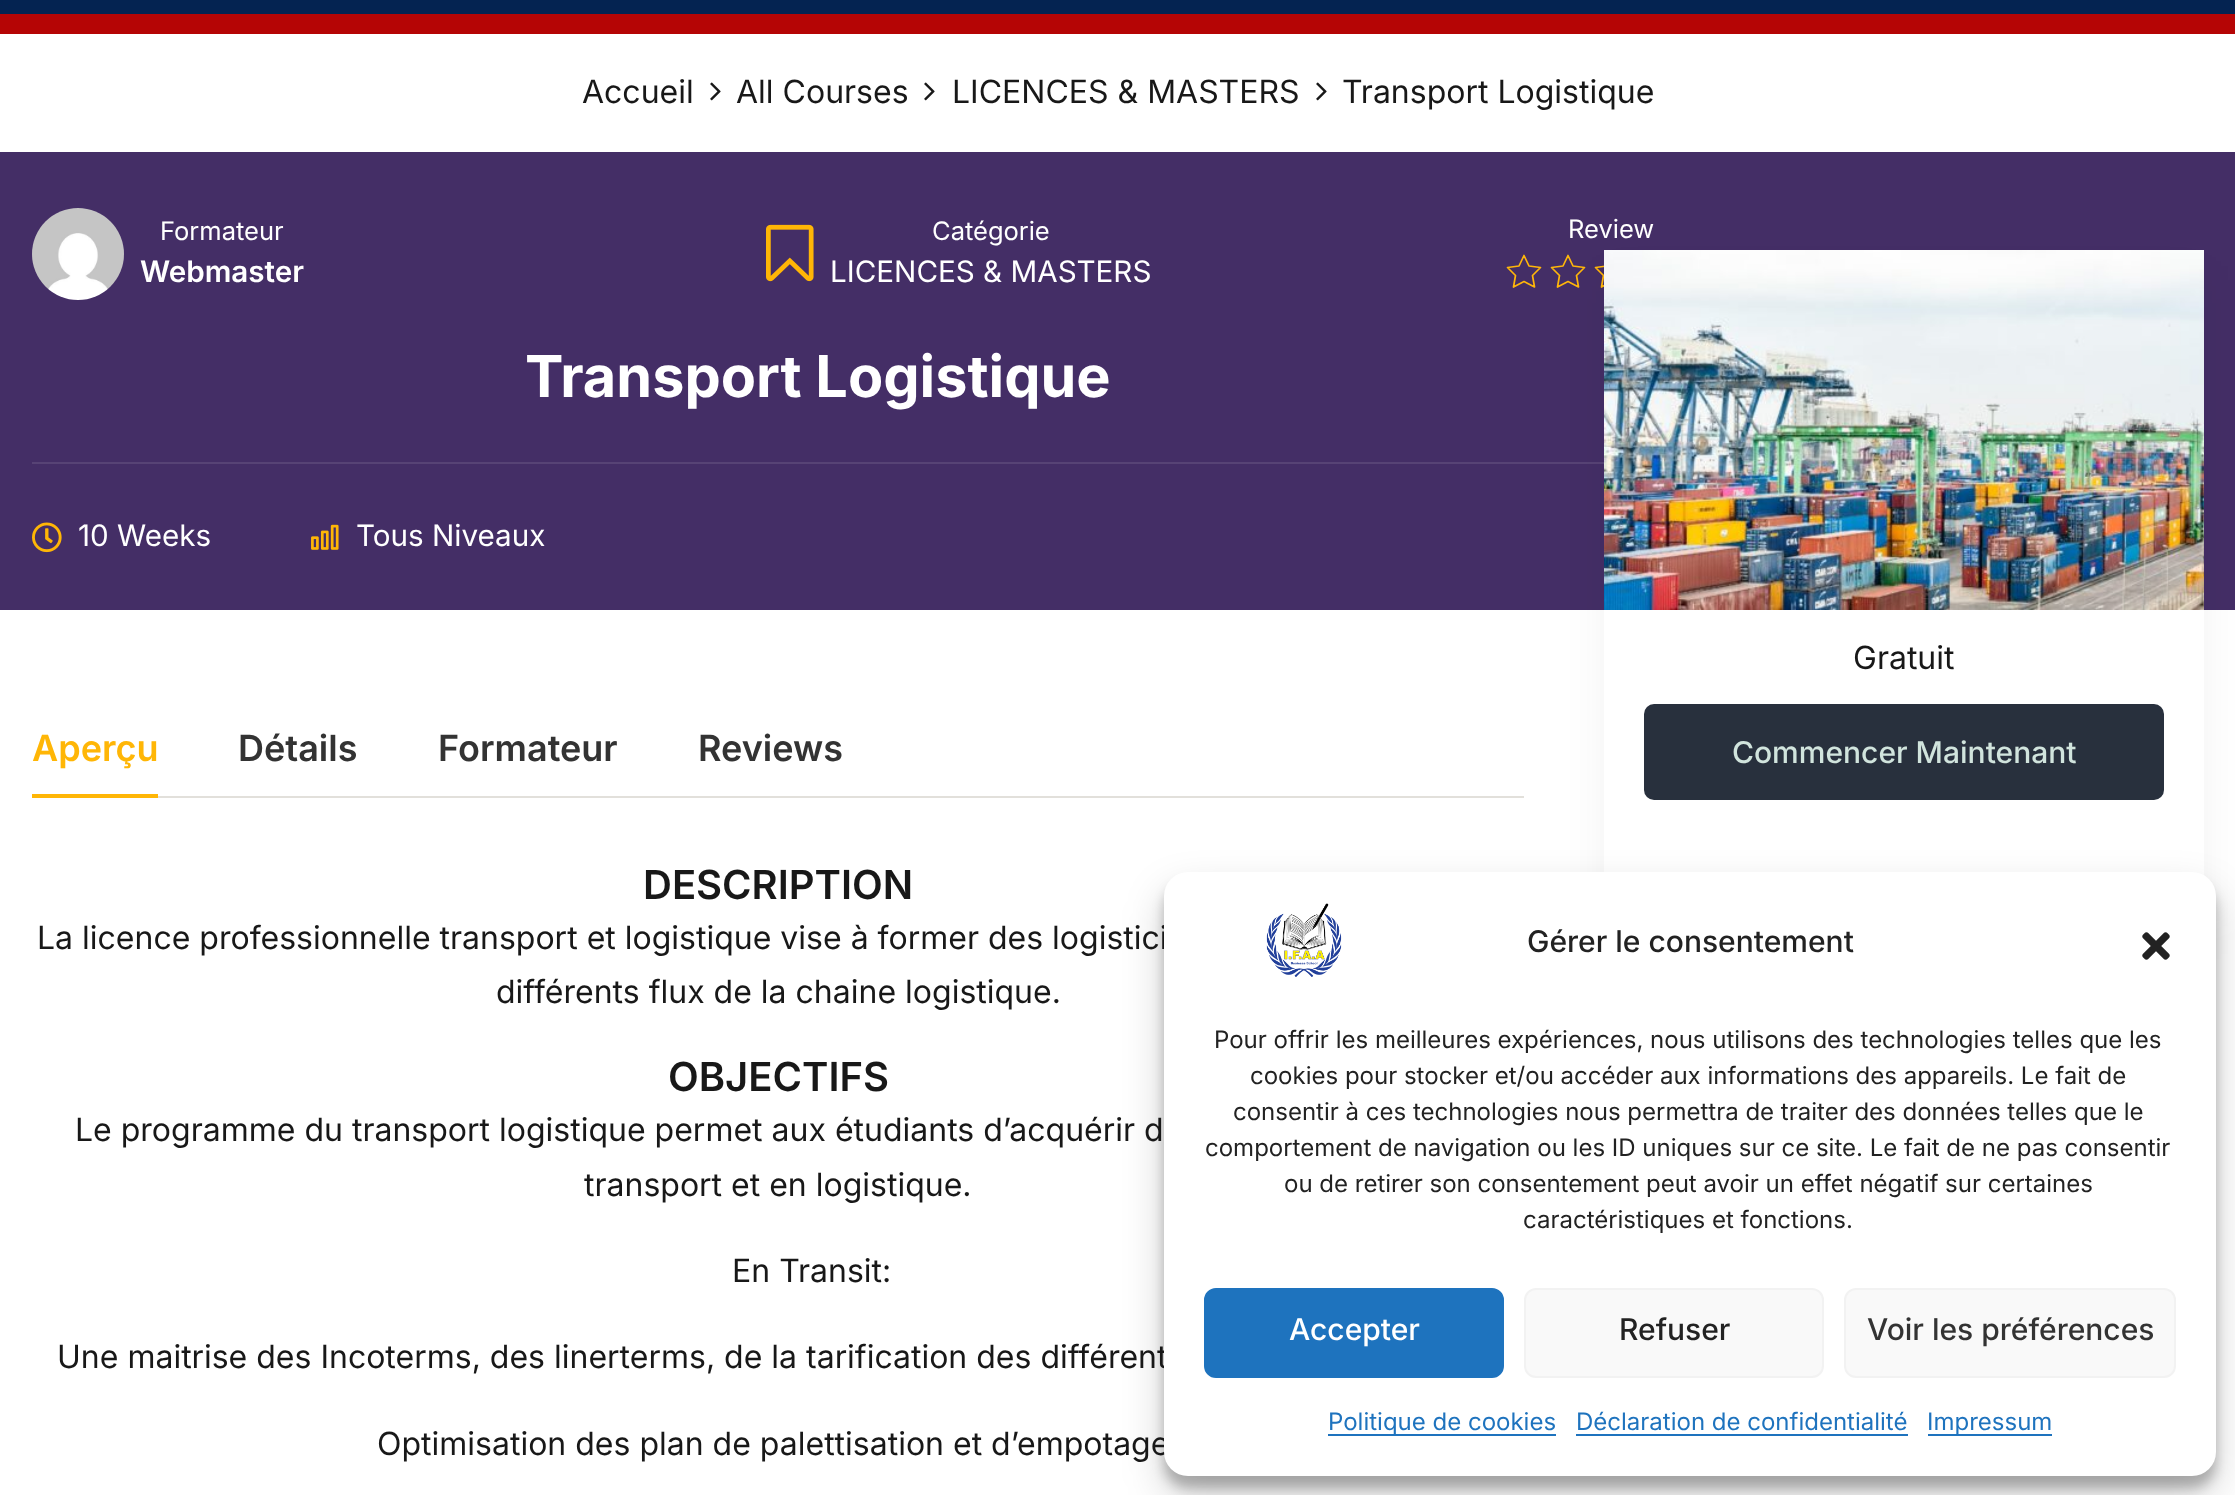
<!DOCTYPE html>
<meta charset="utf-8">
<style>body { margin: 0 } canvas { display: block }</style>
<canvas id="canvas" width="2235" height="1495"></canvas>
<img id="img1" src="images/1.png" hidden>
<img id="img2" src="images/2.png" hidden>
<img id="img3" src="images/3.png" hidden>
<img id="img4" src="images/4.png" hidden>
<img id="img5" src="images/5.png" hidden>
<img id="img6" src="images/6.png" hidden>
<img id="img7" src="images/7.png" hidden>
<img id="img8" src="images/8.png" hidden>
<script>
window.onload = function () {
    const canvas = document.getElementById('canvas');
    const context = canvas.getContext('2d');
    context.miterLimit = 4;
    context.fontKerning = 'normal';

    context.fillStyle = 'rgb(255, 255, 255)';
    context.fillRect(0, 0, 2235, 1495);
    context.fillStyle = 'rgb(4, 35, 81)';
    context.fillRect(0, 0, 2235, 14);
    context.fillStyle = 'rgb(181, 5, 5)';
    context.fillRect(0, 14, 2235, 20);
    context.drawImage(document.getElementById('img1'), 710, 82, 11, 19);
    context.drawImage(document.getElementById('img1'), 924, 82, 11, 19);
    context.drawImage(document.getElementById('img1'), 1316, 82, 11, 19);
    context.fillStyle = 'rgb(68, 46, 102)';
    context.fillRect(0, 152, 2235, 458);
    context.drawImage(document.getElementById('img2'), 32, 208, 92, 92);
    context.drawImage(document.getElementById('img3'), 766, 224, 48, 58);
    context.beginPath();
    context.moveTo(1524, 255.5);
    context.lineTo(1529, 266);
    context.lineTo(1540.5, 267.5);
    context.lineTo(1532.5, 275.5);
    context.lineTo(1534.5, 287);
    context.lineTo(1524, 281.5);
    context.lineTo(1513.5, 287);
    context.lineTo(1515.5, 275.5);
    context.lineTo(1507.5, 267.5);
    context.lineTo(1519, 266);
    context.closePath();
    context.strokeStyle = 'rgb(255, 182, 10)';
    context.lineWidth = 1.7;
    context.lineCap = 'round';
    context.lineJoin = 'round';
    context.stroke();
    context.beginPath();
    context.moveTo(1568, 255.5);
    context.lineTo(1573, 266);
    context.lineTo(1584.5, 267.5);
    context.lineTo(1576.5, 275.5);
    context.lineTo(1578.5, 287);
    context.lineTo(1568, 281.5);
    context.lineTo(1557.5, 287);
    context.lineTo(1559.5, 275.5);
    context.lineTo(1551.5, 267.5);
    context.lineTo(1563, 266);
    context.closePath();
    context.stroke();
    context.beginPath();
    context.moveTo(1612, 255.5);
    context.lineTo(1617, 266);
    context.lineTo(1628.5, 267.5);
    context.lineTo(1620.5, 275.5);
    context.lineTo(1622.5, 287);
    context.lineTo(1612, 281.5);
    context.lineTo(1601.5, 287);
    context.lineTo(1603.5, 275.5);
    context.lineTo(1595.5, 267.5);
    context.lineTo(1607, 266);
    context.closePath();
    context.stroke();
    context.fillStyle = 'rgb(87, 67, 117)';
    context.fillRect(32, 462, 1572, 2);
    context.drawImage(document.getElementById('img4'), 32, 522, 30, 31);
    context.drawImage(document.getElementById('img5'), 311, 524, 28, 26);
    context.fillStyle = 'rgba(0, 0, 0, 0.05)';
    context.filter = 'blur(20px)';
    context.beginPath();
    context.rect(1604, 280, 600, 660);
    context.fill();
    context.filter = 'none';
    context.fillStyle = 'rgb(255, 255, 255)';
    context.fillRect(1604, 610, 600, 266);
    context.drawImage(document.getElementById('img6'), 1604, 250, 600, 360);
    context.fillStyle = 'rgb(40, 48, 61)';
    context.beginPath();
    context.roundRect(1644, 704, 520, 96, 10);
    context.fill();
    context.fillStyle = 'rgb(226, 224, 219)';
    context.fillRect(158, 796, 1366, 2);
    context.fillStyle = 'rgb(255, 182, 6)';
    context.fillRect(32, 794, 126, 4);
    context.fillStyle = 'rgba(0, 0, 0, 0.23)';
    context.filter = 'blur(6px)';
    context.beginPath();
    context.roundRect(1164, 884, 1052, 604, 24);
    context.fill();
    context.filter = 'none';
    context.fillStyle = 'rgba(0, 0, 0, 0.19)';
    context.filter = 'blur(20px)';
    context.beginPath();
    context.roundRect(1164, 892, 1052, 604, 24);
    context.fill();
    context.filter = 'none';
    context.font = '32px Inter';
    context.fillStyle = 'rgb(24, 24, 24)';
    context.fillText('Accueil', 582, 103);
    context.fillText('All Courses', 736, 103);
    context.fillText('LICENCES & MASTERS', 952, 103);
    context.fillText('Transport Logistique', 1342, 103);
    context.font = '25.5px Inter';
    context.fillStyle = 'rgb(255, 255, 255)';
    context.fillText('Formateur', 160, 240);
    context.font = '600 29.6px Inter';
    context.fillText('Webmaster', 140, 282);
    context.font = '25.5px Inter';
    context.fillText('Catégorie', 932, 240);
    context.font = '29.6px Inter';
    context.fillText('LICENCES & MASTERS', 830, 282);
    context.font = '25.5px Inter';
    context.fillText('Review', 1568, 238);
    context.font = 'bold 57.6px Inter';
    context.fillText('Transport Logistique', 525, 397);
    context.font = '29.6px Inter';
    context.fillText('10 Weeks', 78, 546);
    context.fillText('Tous Niveaux', 356, 546);
    context.font = '32px Inter';
    context.fillStyle = 'rgb(24, 24, 24)';
    context.fillText('Gratuit', 1853, 669);
    context.font = '500 30px Inter';
    context.fillStyle = 'rgb(209, 228, 221)';
    context.fillText('Commencer Maintenant', 1732, 763);
    context.font = '600 36px Inter';
    context.fillStyle = 'rgb(255, 182, 6)';
    context.fillText('Aperçu', 32, 761);
    context.fillStyle = 'rgb(51, 51, 51)';
    context.fillText('Détails', 238, 761);
    context.fillText('Formateur', 438, 761);
    context.fillText('Reviews', 698, 761);
    context.font = '600 40px Inter';
    context.fillStyle = 'rgb(24, 24, 24)';
    context.fillText('DESCRIPTION', 643, 899);
    context.font = '32px Inter';
    context.fillText('La licence professionnelle transport et logistique vise à former des logistici', 37, 949);
    context.fillText('différents flux de la chaine logistique.', 496, 1003);
    context.font = '600 40px Inter';
    context.fillText('OBJECTIFS', 668, 1091);
    context.font = '32px Inter';
    context.fillText('Le programme du transport logistique permet aux étudiants d’acquérir d', 75, 1141);
    context.fillText('transport et en logistique.', 584, 1196);
    context.fillText('En Transit:', 732, 1282);
    context.fillText('Une maitrise des Incoterms, des linerterms, de la tarification des différent', 57, 1368);
    context.fillText('Optimisation des plan de palettisation et d’empotage', 377, 1455);
    context.fillStyle = 'rgb(255, 255, 255)';
    context.beginPath();
    context.roundRect(1164, 872, 1052, 604, 24);
    context.fill();
    context.drawImage(document.getElementById('img7'), 1266, 903, 76, 74);
    context.font = '500 30px Inter';
    context.fillStyle = 'rgb(34, 34, 34)';
    context.fillText('Gérer le consentement', 1527, 952);
    context.drawImage(document.getElementById('img8'), 2142, 932, 28, 28);
    context.font = '24px Inter';
    context.fillText('Pour offrir les meilleures expériences, nous utilisons des technologies telles que les', 1214, 1048);
    context.fillText('cookies pour stocker et/ou accéder aux informations des appareils. Le fait de', 1250, 1084);
    context.fillText('consentir à ces technologies nous permettra de traiter des données telles que le', 1233, 1120);
    context.fillText('comportement de navigation ou les ID uniques sur ce site. Le fait de ne pas consentir', 1205, 1156);
    context.fillText('ou de retirer son consentement peut avoir un effet négatif sur certaines', 1284, 1192);
    context.fillText('caractéristiques et fonctions.', 1523, 1228);
    context.fillStyle = 'rgb(30, 115, 190)';
    context.beginPath();
    context.roundRect(1205, 1289, 298, 88, 11);
    context.fill();
    context.strokeStyle = 'rgb(30, 115, 190)';
    context.lineWidth = 2;
    context.lineJoin = 'miter';
    context.stroke();
    context.font = '500 30px Inter';
    context.fillStyle = 'rgb(255, 255, 255)';
    context.fillText('Accepter', 1289, 1340);
    context.fillStyle = 'rgb(249, 249, 249)';
    context.beginPath();
    context.roundRect(1525, 1289, 298, 88, 11);
    context.fill();
    context.strokeStyle = 'rgb(242, 242, 242)';
    context.stroke();
    context.fillStyle = 'rgb(34, 34, 34)';
    context.fillText('Refuser', 1619, 1340);
    context.fillStyle = 'rgb(249, 249, 249)';
    context.beginPath();
    context.roundRect(1845, 1289, 330, 88, 11);
    context.fill();
    context.stroke();
    context.fillStyle = 'rgb(51, 51, 51)';
    context.fillText('Voir les préférences', 1867, 1340);
    context.fillStyle = 'rgb(30, 115, 190)';
    context.fillRect(1328, 1434, 228, 2);
    context.font = '24px Inter';
    context.fillText('Politique de cookies', 1328, 1430);
    context.fillText('Déclaration de confidentialité', 1576, 1430);
    context.fillRect(1576, 1434, 332, 2);
    context.fillRect(1928, 1434, 124, 2);
    context.fillText('Impressum', 1927, 1430);
};
</script>
